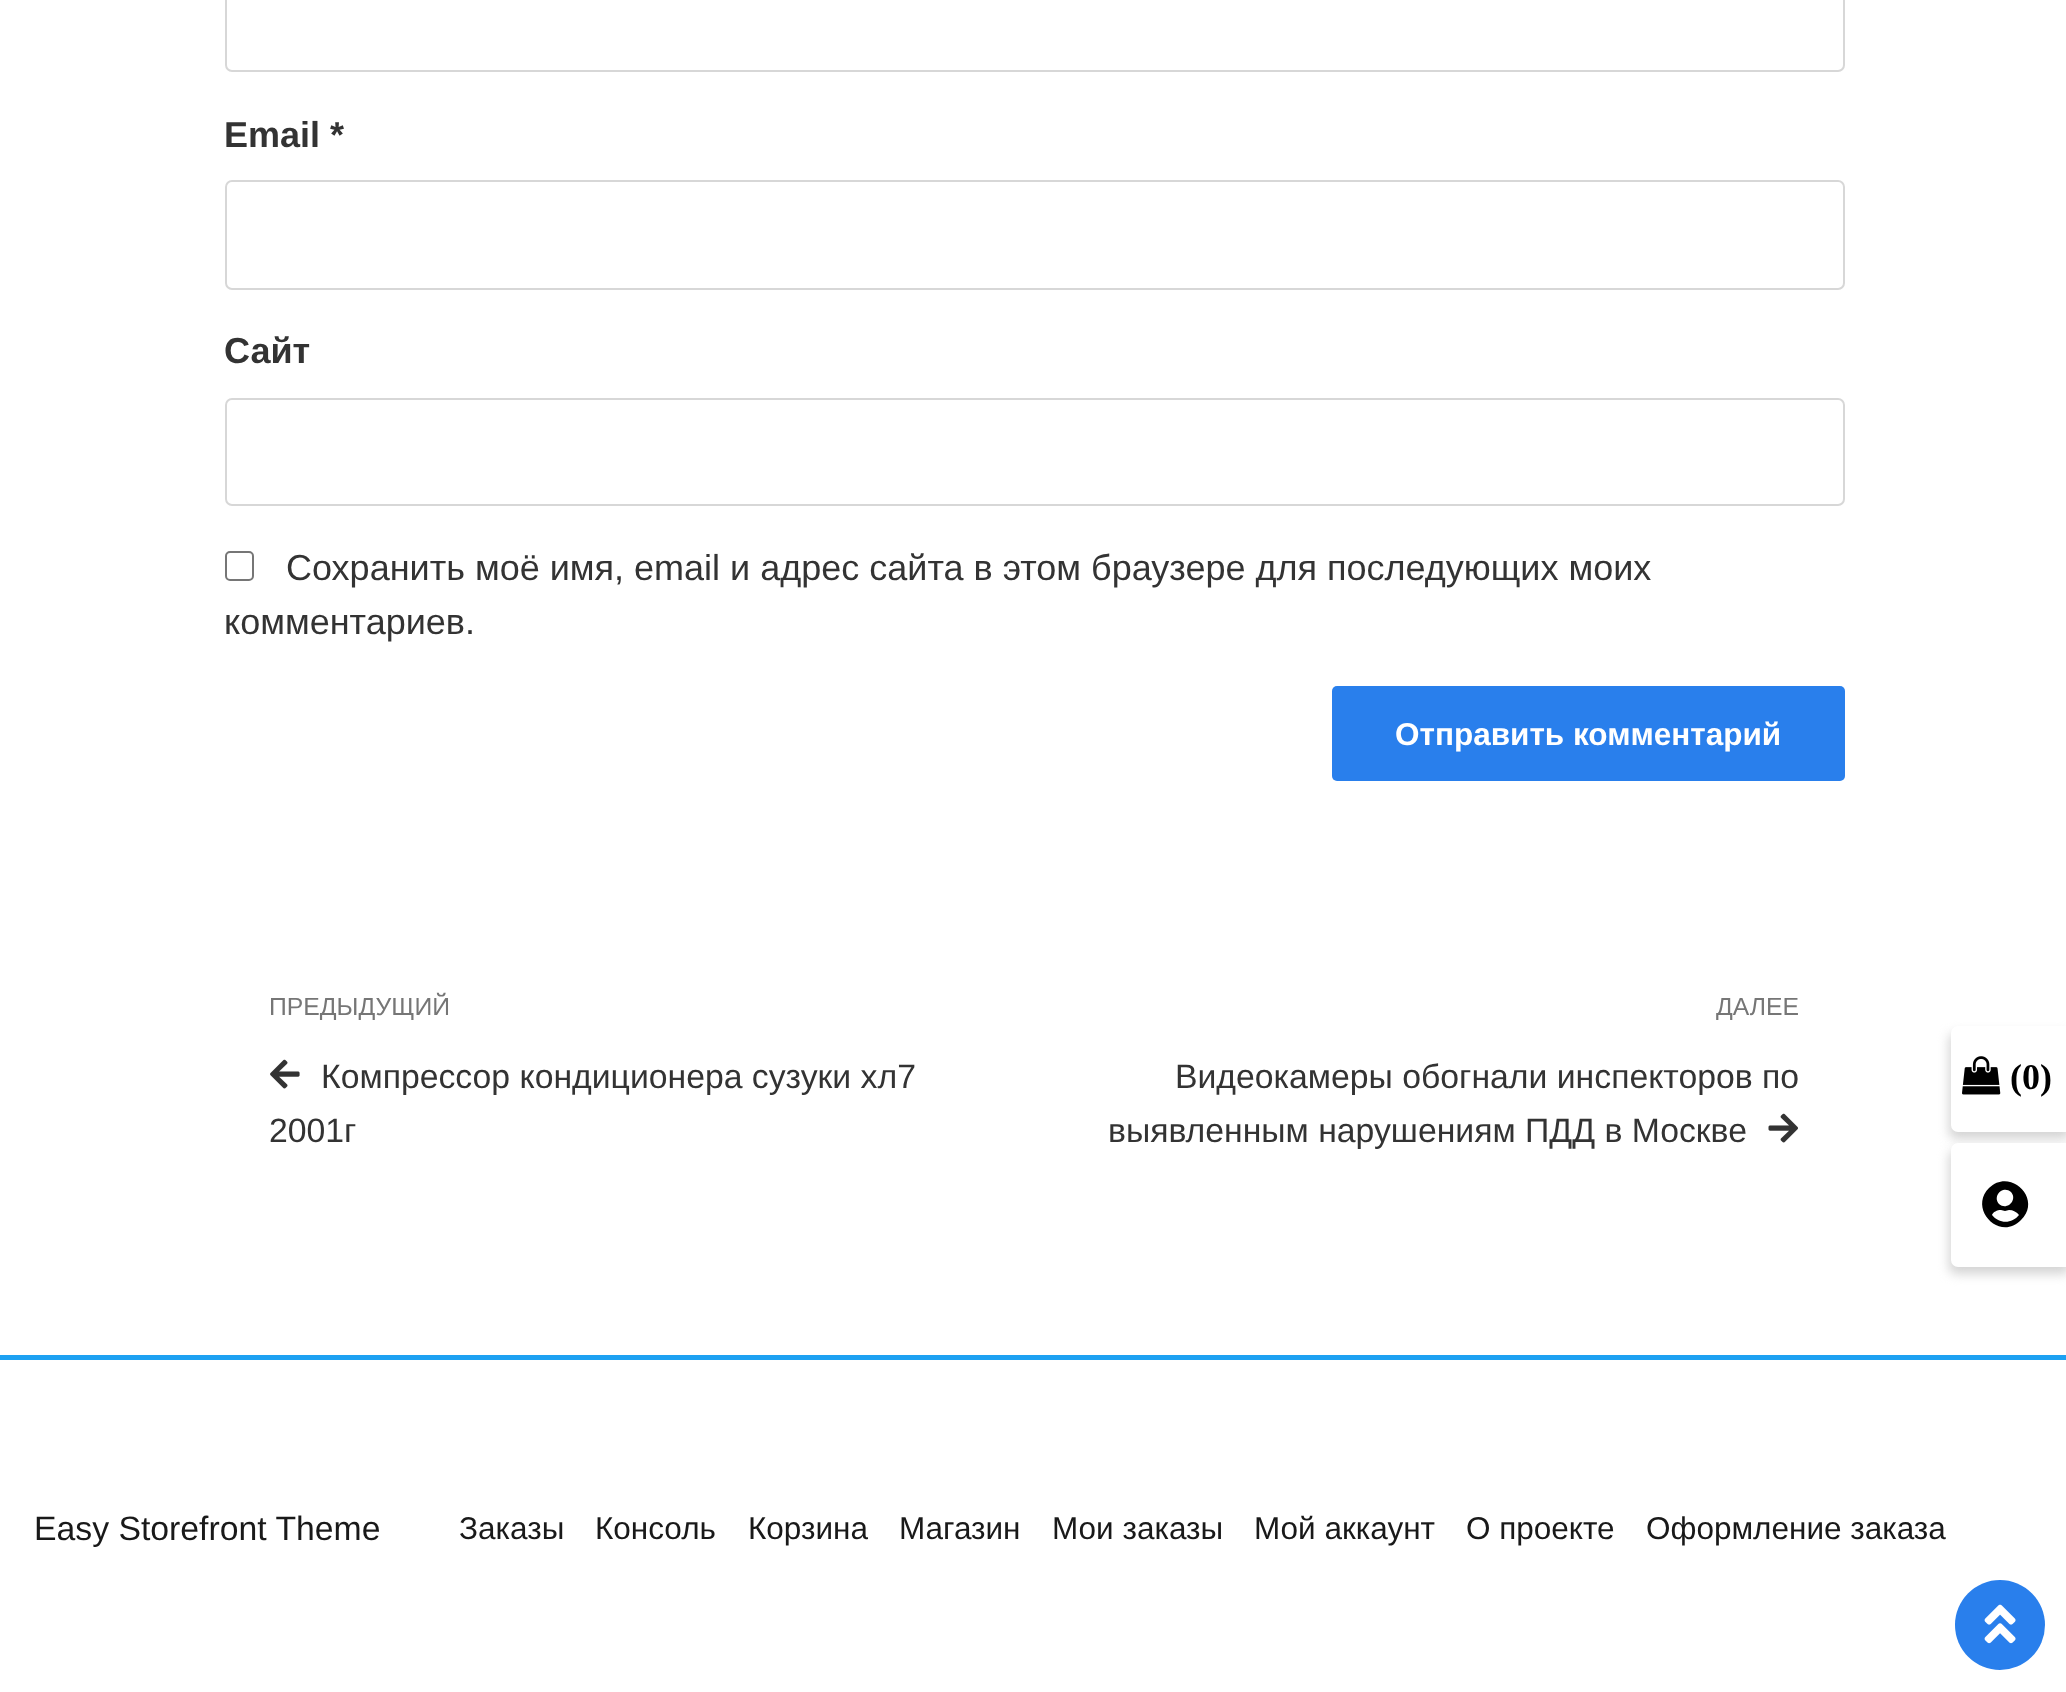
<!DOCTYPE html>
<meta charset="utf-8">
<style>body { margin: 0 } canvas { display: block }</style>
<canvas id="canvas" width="2066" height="1692"></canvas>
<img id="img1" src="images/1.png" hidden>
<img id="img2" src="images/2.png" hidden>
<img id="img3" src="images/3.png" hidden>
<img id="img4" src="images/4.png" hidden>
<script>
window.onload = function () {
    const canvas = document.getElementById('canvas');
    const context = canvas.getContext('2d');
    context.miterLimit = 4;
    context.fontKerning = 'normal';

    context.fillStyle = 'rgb(255, 255, 255)';
    context.fillRect(0, 0, 2066, 1692);
    context.beginPath();
    context.roundRect(226, -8, 1618, 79, 6);
    context.strokeStyle = 'rgb(215, 215, 215)';
    context.lineWidth = 2;
    context.stroke();
    context.beginPath();
    context.roundRect(226, 181, 1618, 108, 6);
    context.stroke();
    context.beginPath();
    context.roundRect(226, 399, 1618, 106, 6);
    context.stroke();
    context.beginPath();
    context.roundRect(226, 552, 27, 28, 4);
    context.strokeStyle = 'rgb(118, 118, 118)';
    context.stroke();
    context.fillStyle = 'rgb(41, 127, 236)';
    context.beginPath();
    context.roundRect(1332, 686, 513, 95, 5);
    context.fill();
    context.drawImage(document.getElementById('img1'), 270, 1059, 30, 30);
    context.drawImage(document.getElementById('img2'), 1768, 1113, 30, 30);
    context.fillStyle = 'rgb(212, 212, 212)';
    context.filter = 'blur(5.5px)';
    context.beginPath();
    context.roundRect(1949, 1033, 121, 106, 7);
    context.fill();
    context.filter = 'none';
    context.fillStyle = 'rgb(255, 255, 255)';
    context.beginPath();
    context.roundRect(1951, 1026, 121, 106, 7);
    context.fill();
    context.drawImage(document.getElementById('img3'), 1962, 1056, 39, 39);
    context.fillStyle = 'rgb(212, 212, 212)';
    context.filter = 'blur(5.5px)';
    context.beginPath();
    context.roundRect(1949, 1150, 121, 124, 7);
    context.fill();
    context.filter = 'none';
    context.fillStyle = 'rgb(255, 255, 255)';
    context.beginPath();
    context.roundRect(1951, 1143, 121, 124, 7);
    context.fill();
    context.fillStyle = 'rgb(0, 0, 0)';
    context.beginPath();
    context.moveTo(1989, 1188);
    context.bezierCurveTo(2010, 1167, 2043, 1199, 2021, 1220);
    context.bezierCurveTo(2000, 1242, 1968, 1209, 1989, 1188);
    context.closePath();
    context.moveTo(2011, 1192);
    context.bezierCurveTo(2003, 1185, 1992, 1196, 1999, 1204);
    context.bezierCurveTo(2007, 1211, 2018, 1200, 2011, 1192);
    context.closePath();
    context.moveTo(1992, 1215);
    context.bezierCurveTo(1999, 1224, 2012, 1224, 2019, 1215);
    context.bezierCurveTo(2017, 1212, 2013, 1210, 2009, 1210);
    context.lineTo(2005, 1211);
    context.lineTo(2001, 1210);
    context.bezierCurveTo(1997, 1210, 1993, 1212, 1992, 1215);
    context.closePath();
    context.fill();
    context.fillStyle = 'rgb(29, 161, 242)';
    context.fillRect(0, 1355, 2066, 5);
    context.fillStyle = 'rgb(41, 127, 236)';
    context.beginPath();
    context.arc(2000, 1625, 45, 0, 2 * Math.PI);
    context.fill();
    context.drawImage(document.getElementById('img4'), 1984, 1604, 32, 40);
    context.font = 'bold 36px Liberation Sans';
    context.fillStyle = 'rgb(51, 51, 51)';
    context.fillText('Email *', 224, 147);
    context.fillText('Сайт', 224, 363);
    context.font = '36px Liberation Sans';
    context.fillText('Сохранить моё имя, email и адрес сайта в этом браузере для последующих моих', 286, 580);
    context.fillText('комментариев.', 224, 634);
    context.font = 'bold 31.5px Liberation Sans';
    context.fillStyle = 'rgb(255, 255, 255)';
    context.fillText('Отправить комментарий', 1395, 745);
    context.font = '24.75px Liberation Sans';
    context.fillStyle = 'rgb(118, 118, 118)';
    context.fillText('ПРЕДЫДУЩИЙ', 269, 1015);
    context.font = '33.75px Liberation Sans';
    context.fillStyle = 'rgb(51, 51, 51)';
    context.fillText('Компрессор кондиционера сузуки хл7', 321, 1088);
    context.fillText('2001г', 269, 1142);
    context.font = '24.75px Liberation Sans';
    context.fillStyle = 'rgb(118, 118, 118)';
    context.fillText('ДАЛЕЕ', 1716, 1015);
    context.font = '33.75px Liberation Sans';
    context.fillStyle = 'rgb(51, 51, 51)';
    context.fillText('Видеокамеры обогнали инспекторов по', 1175, 1088);
    context.fillText('выявленным нарушениям ПДД в Москве', 1108, 1142);
    context.font = 'bold 36px Liberation Serif';
    context.fillStyle = 'rgb(0, 0, 0)';
    context.fillText('(0)', 2010, 1089);
    context.font = '33.75px Liberation Sans';
    context.fillStyle = 'rgb(25, 25, 25)';
    context.fillText('Easy Storefront Theme', 34, 1540);
    context.font = '31.5px Liberation Sans';
    context.fillText('Заказы', 459, 1539);
    context.fillText('Консоль', 595, 1539);
    context.fillText('Корзина', 748, 1539);
    context.fillText('Магазин', 899, 1539);
    context.fillText('Мои заказы', 1052, 1539);
    context.fillText('Мой аккаунт', 1254, 1539);
    context.fillText('О проекте', 1466, 1539);
    context.fillText('Оформление заказа', 1646, 1539);
};
</script>
